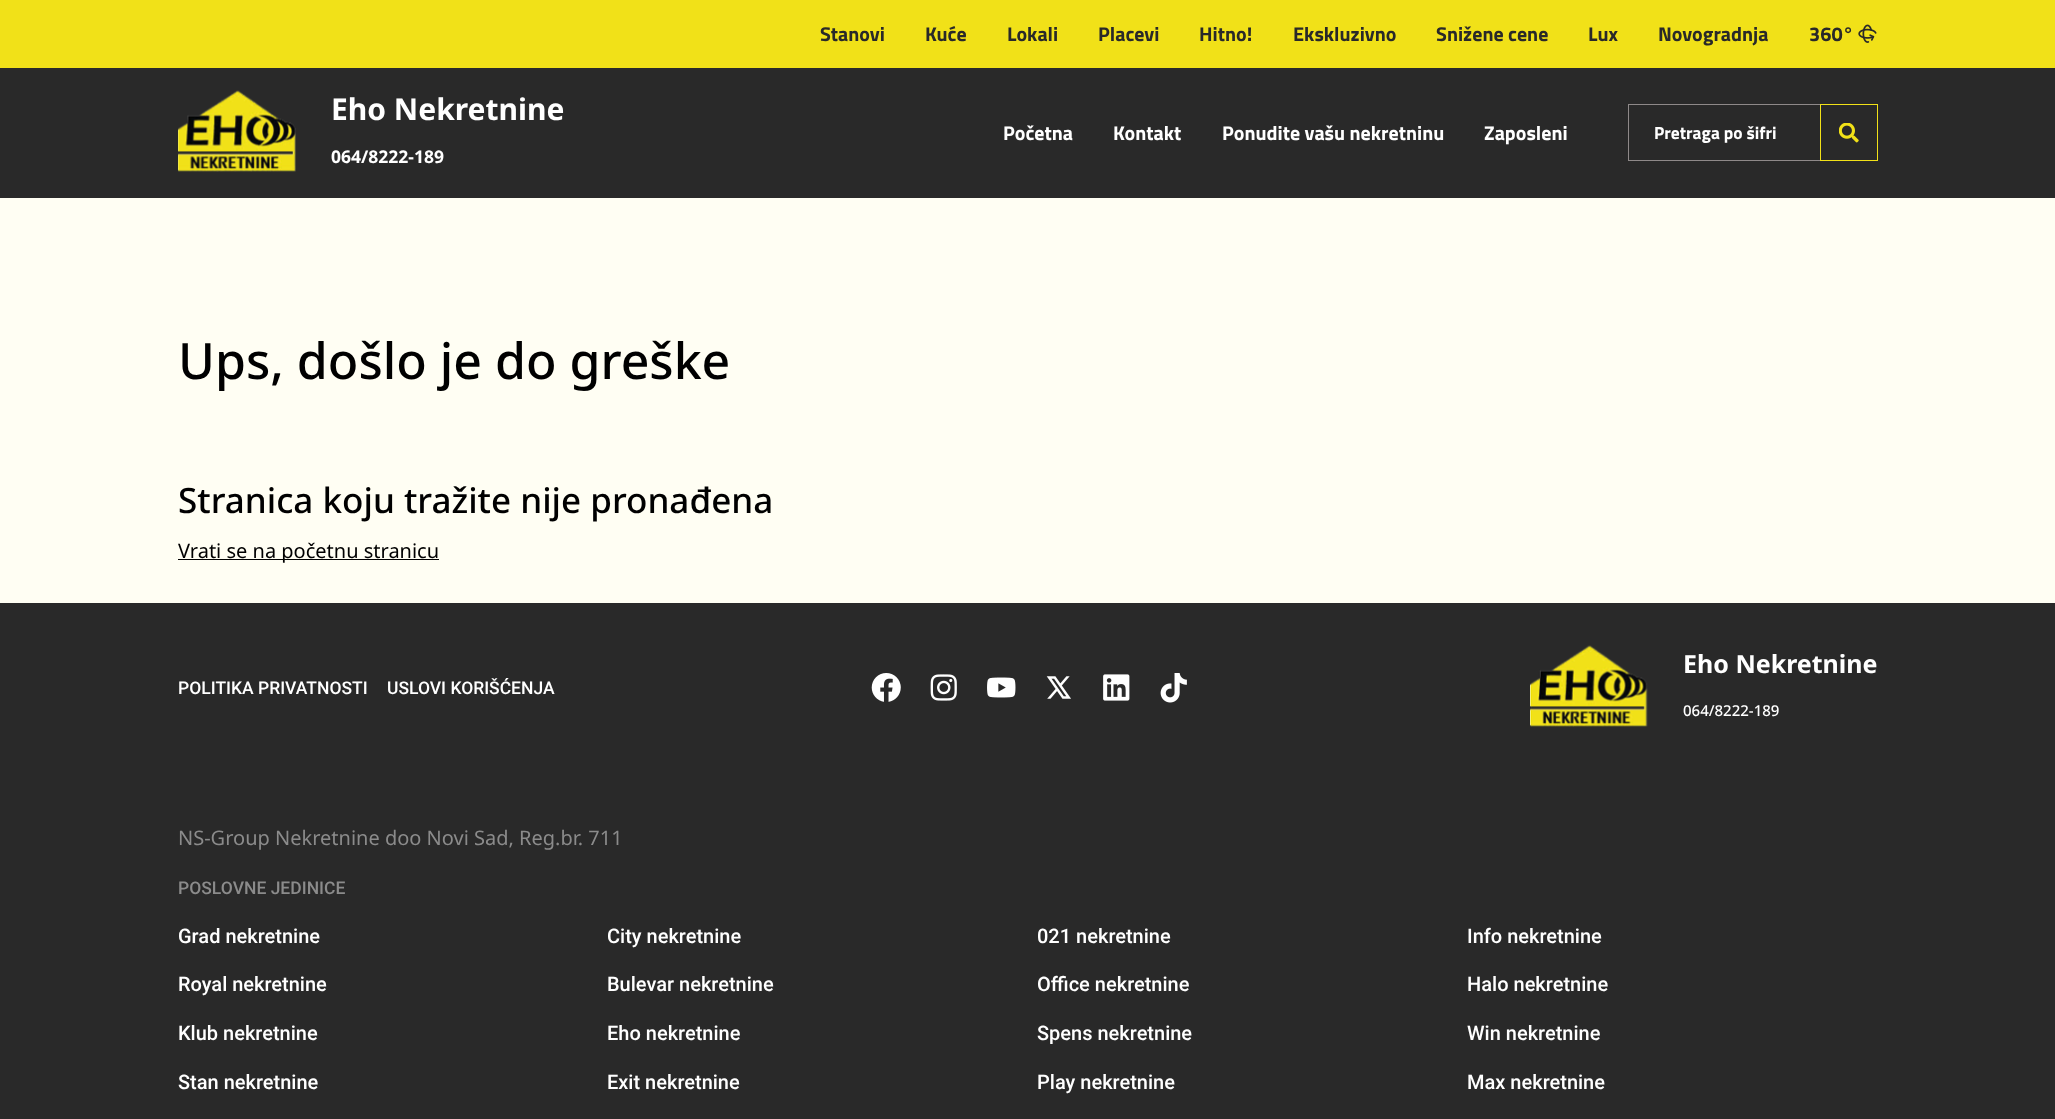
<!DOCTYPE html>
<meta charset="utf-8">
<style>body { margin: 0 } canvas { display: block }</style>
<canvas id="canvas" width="2055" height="1119"></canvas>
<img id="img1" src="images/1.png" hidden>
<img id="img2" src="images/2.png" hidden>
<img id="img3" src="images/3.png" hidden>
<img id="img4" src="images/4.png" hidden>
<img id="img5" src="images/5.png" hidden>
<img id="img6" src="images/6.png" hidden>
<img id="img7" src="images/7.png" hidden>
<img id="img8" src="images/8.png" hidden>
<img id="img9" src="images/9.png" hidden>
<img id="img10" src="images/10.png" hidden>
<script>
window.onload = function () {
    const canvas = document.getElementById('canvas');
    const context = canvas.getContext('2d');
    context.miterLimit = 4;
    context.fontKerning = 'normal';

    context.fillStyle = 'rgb(255, 254, 243)';
    context.fillRect(0, 0, 2055, 1119);
    context.fillStyle = 'rgb(241, 225, 24)';
    context.fillRect(0, 0, 2055, 68);
    context.drawImage(document.getElementById('img1'), 1858, 24, 19, 19);
    context.fillStyle = 'rgb(41, 41, 41)';
    context.fillRect(0, 68, 2055, 130);
    context.drawImage(document.getElementById('img2'), 178, 90, 118, 82);
    context.strokeStyle = 'rgb(142, 137, 137)';
    context.strokeRect(1628.5, 104.5, 249, 56);
    context.strokeStyle = 'rgb(241, 225, 24)';
    context.strokeRect(1820.5, 104.5, 57, 56);
    context.drawImage(document.getElementById('img3'), 1839, 123, 20, 20);
    context.fillStyle = 'rgb(0, 0, 0)';
    context.fillRect(178, 559, 261, 1);
    context.fillStyle = 'rgb(41, 41, 41)';
    context.fillRect(0, 603, 2055, 516);
    context.drawImage(document.getElementById('img4'), 871, 673, 30, 29);
    context.drawImage(document.getElementById('img5'), 930, 674, 27, 27);
    context.drawImage(document.getElementById('img6'), 987, 677, 29, 21);
    context.drawImage(document.getElementById('img7'), 1046, 676, 25, 23);
    context.drawImage(document.getElementById('img8'), 1103, 674, 27, 27);
    context.drawImage(document.getElementById('img9'), 1160, 673, 27, 30);
    context.drawImage(document.getElementById('img10'), 1530, 645, 118, 82);
    context.font = 'bold 20px Titillium Web';
    context.fillText('Stanovi', 820, 41);
    context.fillText('Kuće', 925, 41);
    context.fillText('Lokali', 1007, 41);
    context.fillText('Placevi', 1098, 41);
    context.fillText('Hitno!', 1199, 41);
    context.fillText('Ekskluzivno', 1293, 41);
    context.fillText('Snižene cene', 1436, 41);
    context.fillText('Lux', 1588, 41);
    context.fillText('Novogradnja', 1658, 41);
    context.fillText('360°', 1809, 41);
    context.font = 'bold 30px Noto Sans';
    context.fillStyle = 'rgb(255, 255, 255)';
    context.fillText('Eho Nekretnine', 331, 120);
    context.font = 'bold 17.5px Noto Sans';
    context.fillText('064/8222-189', 331, 163);
    context.font = 'bold 20px Titillium Web';
    context.fillText('Početna', 1003, 140);
    context.fillText('Kontakt', 1113, 140);
    context.fillText('Ponudite vašu nekretninu', 1222, 140);
    context.fillText('Zaposleni', 1484, 140);
    context.font = 'bold 17.5px Titillium Web';
    context.fillText('Pretraga po šifri', 1654, 139);
    context.font = '500 50px Noto Sans';
    context.fillStyle = 'rgb(0, 0, 0)';
    context.fillText('Ups, došlo je do greške', 178, 379);
    context.font = '500 35px Noto Sans';
    context.fillText('Stranica koju tražite nije pronađena', 178, 513);
    context.font = '20px Noto Sans';
    context.fillText('Vrati se na početnu stranicu', 178, 558);
    context.font = '500 17.5px Roboto';
    context.fillStyle = 'rgb(255, 255, 255)';
    context.fillText('POLITIKA PRIVATNOSTI', 178, 694);
    context.fillText('USLOVI KORIŠĆENJA', 387, 694);
    context.font = 'bold 25px Noto Sans';
    context.fillText('Eho Nekretnine', 1683, 673);
    context.font = '500 15px Noto Sans';
    context.fillText('064/8222-189', 1683, 716);
    context.font = '20px Noto Sans';
    context.fillStyle = 'rgb(139, 139, 139)';
    context.fillText('NS-Group Nekretnine doo Novi Sad, Reg.br. 711', 178, 845);
    context.font = '500 17.5px Roboto';
    context.fillText('POSLOVNE JEDINICE', 178, 894);
    context.font = '500 20px Roboto';
    context.fillStyle = 'rgb(255, 255, 255)';
    context.fillText('Grad nekretnine', 178, 943);
    context.fillText('City nekretnine', 607, 943);
    context.fillText('021 nekretnine', 1037, 943);
    context.fillText('Info nekretnine', 1467, 943);
    context.fillText('Royal nekretnine', 178, 991);
    context.fillText('Bulevar nekretnine', 607, 991);
    context.fillText('Office nekretnine', 1037, 991);
    context.fillText('Halo nekretnine', 1467, 991);
    context.fillText('Klub nekretnine', 178, 1040);
    context.fillText('Eho nekretnine', 607, 1040);
    context.fillText('Spens nekretnine', 1037, 1040);
    context.fillText('Win nekretnine', 1467, 1040);
    context.fillText('Stan nekretnine', 178, 1089);
    context.fillText('Exit nekretnine', 607, 1089);
    context.fillText('Play nekretnine', 1037, 1089);
    context.fillText('Max nekretnine', 1467, 1089);
};
</script>
